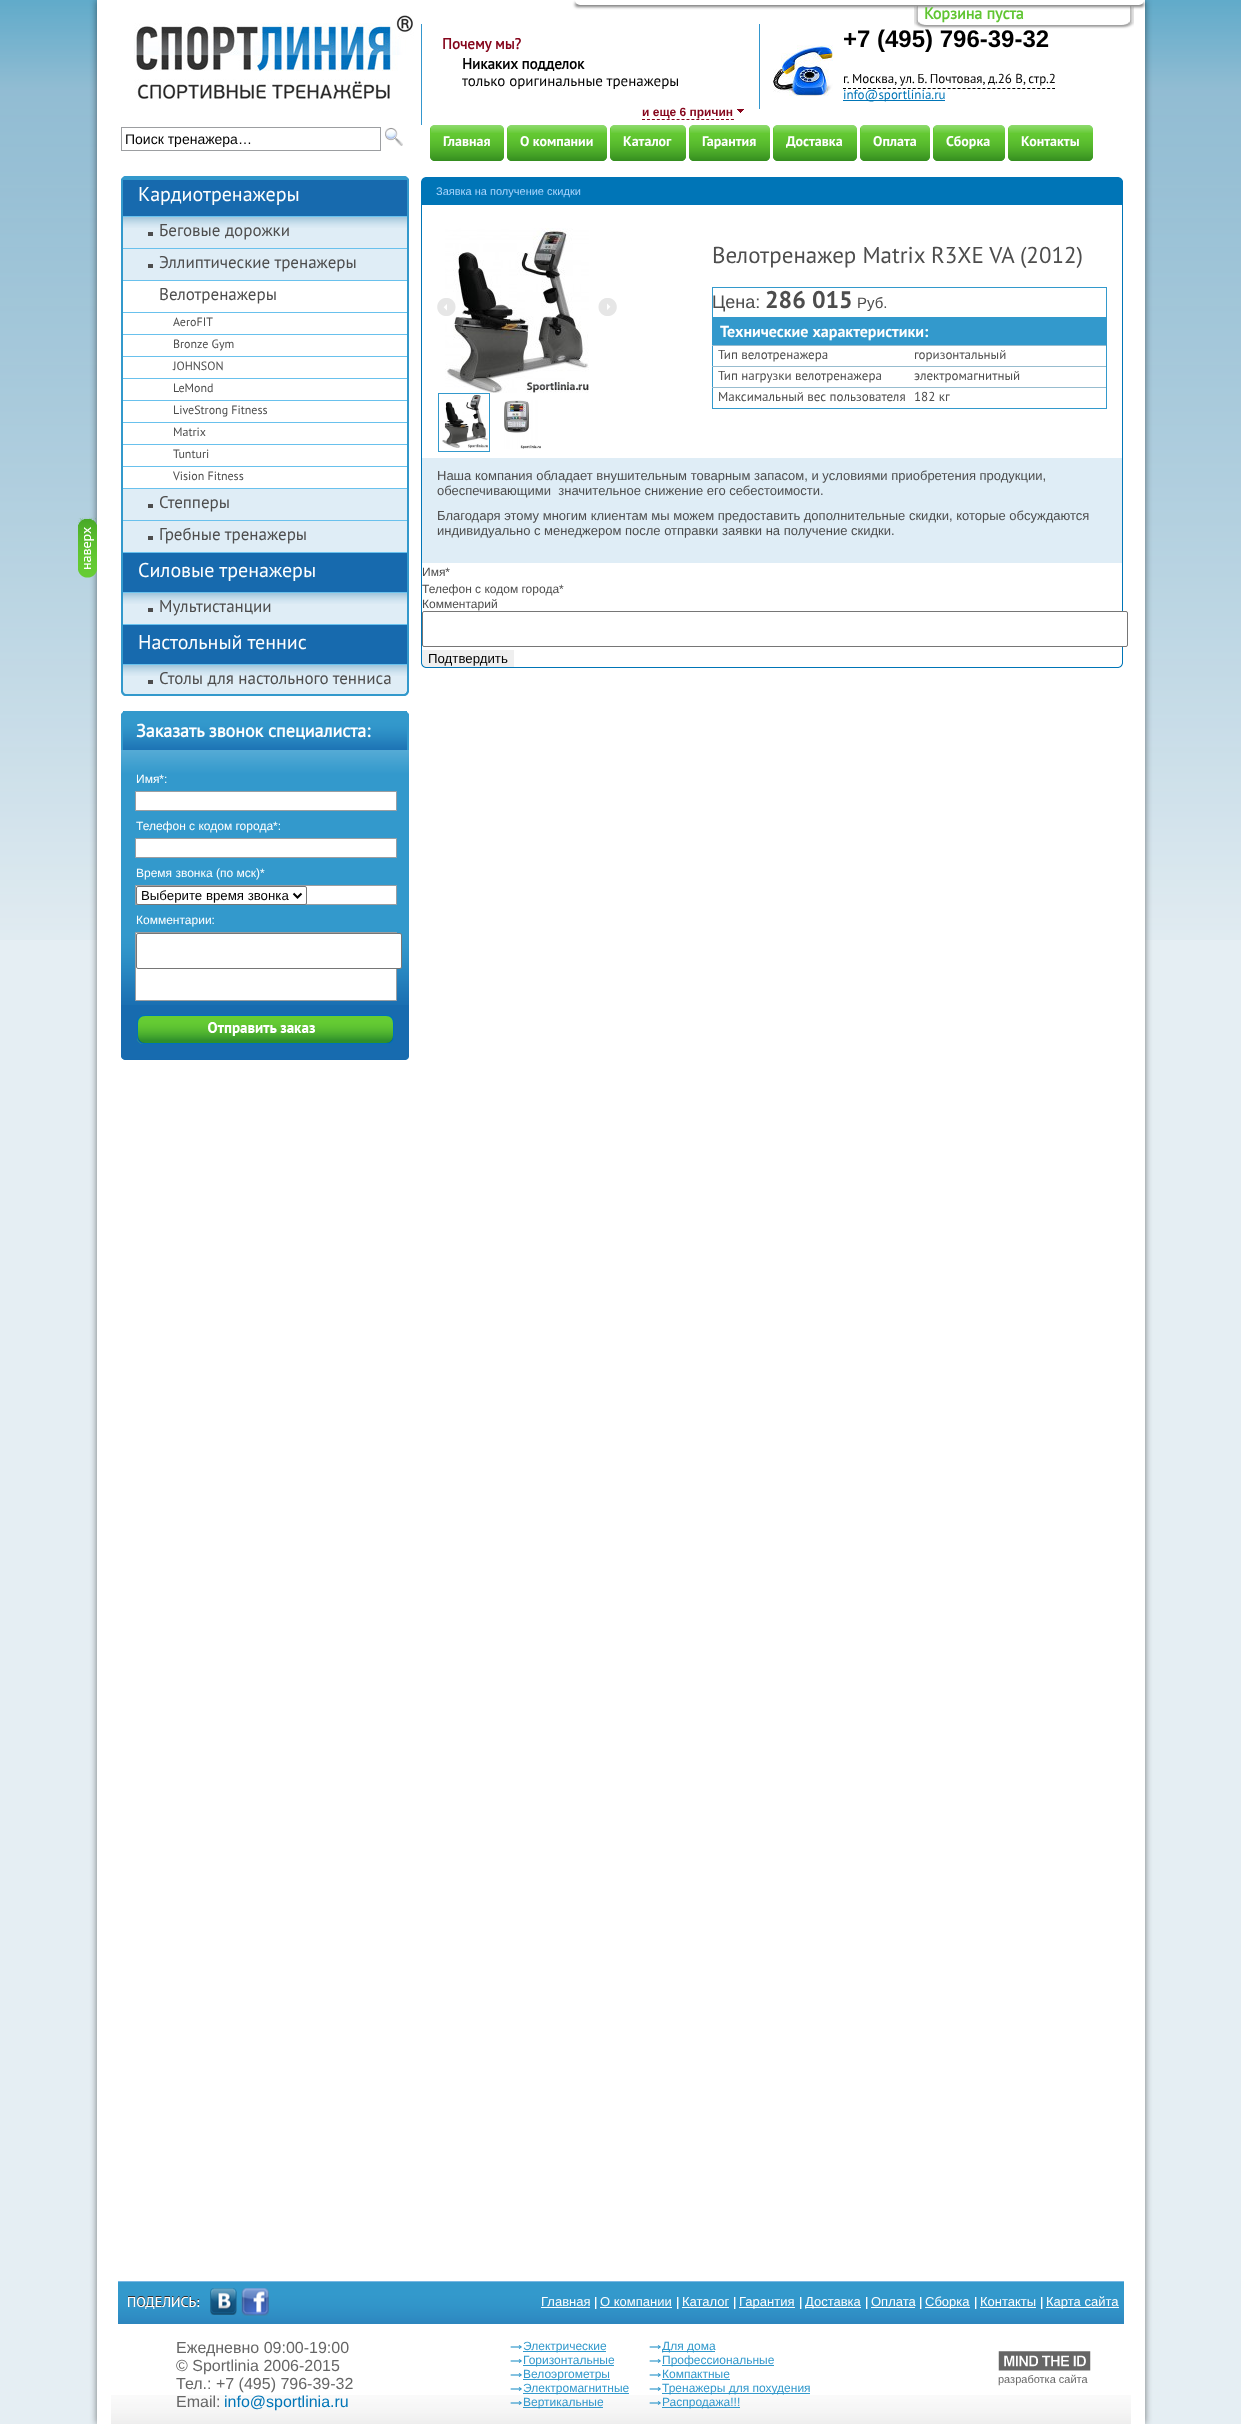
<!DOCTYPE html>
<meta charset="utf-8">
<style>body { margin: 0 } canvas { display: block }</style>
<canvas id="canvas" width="1241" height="2424"></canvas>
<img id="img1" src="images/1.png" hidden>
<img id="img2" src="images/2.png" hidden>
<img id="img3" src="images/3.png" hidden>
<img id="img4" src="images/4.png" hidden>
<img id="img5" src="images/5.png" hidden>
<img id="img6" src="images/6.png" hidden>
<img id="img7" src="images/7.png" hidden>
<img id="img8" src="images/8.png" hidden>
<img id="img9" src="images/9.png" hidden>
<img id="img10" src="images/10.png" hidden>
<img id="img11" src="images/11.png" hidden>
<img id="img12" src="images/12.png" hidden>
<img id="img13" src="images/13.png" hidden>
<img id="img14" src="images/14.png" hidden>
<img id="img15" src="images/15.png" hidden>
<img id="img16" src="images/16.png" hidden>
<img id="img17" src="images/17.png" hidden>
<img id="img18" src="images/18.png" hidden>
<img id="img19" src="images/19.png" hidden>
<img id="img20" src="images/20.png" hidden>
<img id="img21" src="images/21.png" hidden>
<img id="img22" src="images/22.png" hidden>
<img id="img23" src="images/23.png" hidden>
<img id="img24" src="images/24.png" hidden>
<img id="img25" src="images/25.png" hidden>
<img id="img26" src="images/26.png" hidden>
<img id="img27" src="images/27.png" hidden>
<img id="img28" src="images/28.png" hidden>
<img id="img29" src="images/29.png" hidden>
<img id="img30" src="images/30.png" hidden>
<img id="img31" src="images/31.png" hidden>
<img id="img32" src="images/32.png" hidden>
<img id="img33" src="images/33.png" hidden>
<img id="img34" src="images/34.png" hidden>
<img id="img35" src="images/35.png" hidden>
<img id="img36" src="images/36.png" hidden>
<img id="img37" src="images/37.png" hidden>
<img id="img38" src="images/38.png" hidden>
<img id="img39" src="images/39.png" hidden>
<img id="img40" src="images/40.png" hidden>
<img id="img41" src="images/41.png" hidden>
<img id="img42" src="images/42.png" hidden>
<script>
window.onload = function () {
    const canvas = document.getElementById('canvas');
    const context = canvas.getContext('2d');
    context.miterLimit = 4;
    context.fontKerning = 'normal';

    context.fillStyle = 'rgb(229, 238, 243)';
    context.fillRect(0, 0, 1241, 2424);
    context.drawImage(document.getElementById('img1'), 0, 0, 1241, 940);
    context.fillStyle = 'rgba(0, 0, 0, 0.5)';
    context.filter = 'blur(3.5px)';
    context.beginPath();
    context.rect(97, 0, 1048, 2424);
    context.fill();
    context.filter = 'none';
    context.fillStyle = 'rgb(255, 255, 255)';
    context.fillRect(97, 0, 1048, 2424);
    context.drawImage(document.getElementById('img2'), 78, 517, 19, 61);
    context.drawImage(document.getElementById('img3'), 134, 15, 280, 84);
    context.strokeStyle = 'rgb(156, 158, 161)';
    context.strokeRect(121.5, 127.5, 259, 23);
    context.drawImage(document.getElementById('img4'), 385, 127, 18, 19);
    context.fillStyle = 'rgb(51, 153, 204)';
    context.fillRect(407, 176, 2, 520);
    context.fillRect(121, 176, 2, 520);
    context.drawImage(document.getElementById('img5'), 121, 176, 288, 4);
    context.fillStyle = 'rgb(23, 106, 174)';
    context.fillRect(123, 180, 284, 36);
    context.fillStyle = 'rgb(223, 237, 246)';
    context.fillRect(123, 228, 284, 20);
    context.drawImage(document.getElementById('img6'), 123, 217, 284, 11);
    context.fillStyle = 'rgb(105, 193, 237)';
    context.fillRect(123, 216, 284, 1);
    context.fillStyle = 'rgb(77, 77, 77)';
    context.fillRect(148, 232, 5, 4);
    context.fillStyle = 'rgb(223, 237, 246)';
    context.fillRect(123, 249, 284, 31);
    context.fillStyle = 'rgb(105, 193, 237)';
    context.fillRect(123, 248, 284, 1);
    context.fillStyle = 'rgb(77, 77, 77)';
    context.fillRect(148, 264, 5, 4);
    context.fillStyle = 'rgb(105, 193, 237)';
    context.fillRect(123, 280, 284, 1);
    context.fillRect(123, 312, 284, 1);
    context.fillRect(123, 334, 284, 1);
    context.fillRect(123, 356, 284, 1);
    context.fillRect(123, 378, 284, 1);
    context.fillRect(123, 400, 284, 1);
    context.fillRect(123, 422, 284, 1);
    context.fillRect(123, 444, 284, 1);
    context.fillRect(123, 466, 284, 1);
    context.fillStyle = 'rgb(223, 237, 246)';
    context.fillRect(123, 489, 284, 31);
    context.fillStyle = 'rgb(105, 193, 237)';
    context.fillRect(123, 488, 284, 1);
    context.fillStyle = 'rgb(77, 77, 77)';
    context.fillRect(148, 504, 5, 4);
    context.fillStyle = 'rgb(223, 237, 246)';
    context.fillRect(123, 521, 284, 31);
    context.fillStyle = 'rgb(105, 193, 237)';
    context.fillRect(123, 520, 284, 1);
    context.fillStyle = 'rgb(77, 77, 77)';
    context.fillRect(148, 536, 5, 4);
    context.fillStyle = 'rgb(105, 193, 237)';
    context.fillRect(123, 552, 284, 1);
    context.fillStyle = 'rgb(23, 106, 174)';
    context.fillRect(123, 553, 284, 39);
    context.fillStyle = 'rgb(223, 237, 246)';
    context.fillRect(123, 604, 284, 20);
    context.drawImage(document.getElementById('img6'), 123, 593, 284, 11);
    context.fillStyle = 'rgb(105, 193, 237)';
    context.fillRect(123, 592, 284, 1);
    context.fillStyle = 'rgb(77, 77, 77)';
    context.fillRect(148, 608, 5, 4);
    context.fillStyle = 'rgb(105, 193, 237)';
    context.fillRect(123, 624, 284, 1);
    context.fillStyle = 'rgb(23, 106, 174)';
    context.fillRect(123, 625, 284, 39);
    context.fillStyle = 'rgb(223, 237, 246)';
    context.fillRect(123, 676, 284, 18);
    context.drawImage(document.getElementById('img6'), 123, 665, 284, 11);
    context.fillStyle = 'rgb(105, 193, 237)';
    context.fillRect(123, 664, 284, 1);
    context.fillStyle = 'rgb(77, 77, 77)';
    context.fillRect(148, 680, 5, 4);
    context.drawImage(document.getElementById('img7'), 121, 691, 288, 5);
    context.fillStyle = 'rgb(51, 153, 204)';
    context.fillRect(407, 711, 2, 39);
    context.fillRect(121, 711, 2, 39);
    context.drawImage(document.getElementById('img5'), 121, 711, 288, 4);
    context.drawImage(document.getElementById('img8'), 123, 711, 284, 39);
    context.fillStyle = 'rgb(23, 107, 175)';
    context.fillRect(121, 1005, 288, 51);
    context.drawImage(document.getElementById('img9'), 121, 750, 288, 255);
    context.fillStyle = 'rgb(255, 255, 255)';
    context.beginPath();
    context.rect(135.5, 791.5, 261, 19);
    context.fill();
    context.stroke();
    context.beginPath();
    context.rect(135.5, 838.5, 261, 19);
    context.fill();
    context.stroke();
    context.beginPath();
    context.rect(135.5, 885.5, 261, 19);
    context.fill();
    context.stroke();
    context.beginPath();
    context.roundRect(136.5, 886.5, 170, 18, 1.5);
    context.fill();
    context.strokeStyle = 'rgb(118, 118, 118)';
    context.stroke();
    context.beginPath();
    context.moveTo(293.5, 893.5);
    context.lineTo(297.5, 897.5);
    context.lineTo(301.5, 893.5);
    context.strokeStyle = 'rgb(0, 0, 0)';
    context.lineWidth = 2;
    context.stroke();
    context.beginPath();
    context.rect(135.5, 932.5, 261, 68);
    context.fill();
    context.strokeStyle = 'rgb(156, 158, 161)';
    context.lineWidth = 1;
    context.stroke();
    context.beginPath();
    context.roundRect(136.5, 933.5, 265, 35, 1.5);
    context.fill();
    context.strokeStyle = 'rgb(118, 118, 118)';
    context.stroke();
    context.drawImage(document.getElementById('img10'), 137, 1015, 257, 29);
    context.drawImage(document.getElementById('img11'), 121, 1056, 288, 4);
    context.drawImage(document.getElementById('img12'), 914, 6, 220, 23);
    context.fillStyle = 'rgba(0, 0, 0, 0.5)';
    context.filter = 'blur(1.5px)';
    context.beginPath();
    context.roundRect(575, 2, 569, 5, 5);
    context.fill();
    context.filter = 'none';
    context.fillStyle = 'rgb(255, 255, 255)';
    context.beginPath();
    context.roundRect(575, 0, 569, 5, [0, 0, 5, 5]);
    context.fill();
    context.fillStyle = 'rgb(52, 151, 206)';
    context.fillRect(421, 24, 1, 101);
    context.beginPath();
    context.moveTo(642, 119.5);
    context.lineTo(734, 119.5);
    context.strokeStyle = 'rgb(133, 5, 27)';
    context.setLineDash([3, 1.94]);
    context.stroke();
    context.drawImage(document.getElementById('img13'), 737, 109, 7, 4);
    context.fillRect(759, 24, 1, 85);
    context.drawImage(document.getElementById('img14'), 773, 45, 60, 51);
    context.beginPath();
    context.moveTo(843, 88.5);
    context.lineTo(1055, 88.5);
    context.strokeStyle = 'rgb(0, 0, 0)';
    context.setLineDash([3, 1.98]);
    context.stroke();
    context.fillStyle = 'rgb(0, 117, 183)';
    context.fillRect(843, 100, 102, 1);
    context.drawImage(document.getElementById('img15'), 434, 125, 66, 36);
    context.drawImage(document.getElementById('img16'), 430, 125, 4, 36);
    context.drawImage(document.getElementById('img17'), 500, 125, 4, 36);
    context.drawImage(document.getElementById('img18'), 511, 125, 92, 36);
    context.drawImage(document.getElementById('img16'), 507, 125, 4, 36);
    context.drawImage(document.getElementById('img17'), 603, 125, 4, 36);
    context.drawImage(document.getElementById('img19'), 614, 125, 68, 36);
    context.drawImage(document.getElementById('img16'), 610, 125, 4, 36);
    context.drawImage(document.getElementById('img17'), 682, 125, 4, 36);
    context.drawImage(document.getElementById('img20'), 693, 125, 73, 36);
    context.drawImage(document.getElementById('img16'), 689, 125, 4, 36);
    context.drawImage(document.getElementById('img17'), 766, 125, 4, 36);
    context.drawImage(document.getElementById('img21'), 777, 125, 76, 36);
    context.drawImage(document.getElementById('img16'), 773, 125, 4, 36);
    context.drawImage(document.getElementById('img17'), 853, 125, 4, 36);
    context.drawImage(document.getElementById('img22'), 864, 125, 62, 36);
    context.drawImage(document.getElementById('img16'), 860, 125, 4, 36);
    context.drawImage(document.getElementById('img17'), 926, 125, 4, 36);
    context.drawImage(document.getElementById('img23'), 937, 125, 64, 36);
    context.drawImage(document.getElementById('img16'), 933, 125, 4, 36);
    context.drawImage(document.getElementById('img17'), 1001, 125, 4, 36);
    context.drawImage(document.getElementById('img24'), 1012, 125, 77, 36);
    context.drawImage(document.getElementById('img16'), 1008, 125, 4, 36);
    context.drawImage(document.getElementById('img17'), 1089, 125, 4, 36);
    context.fillRect(1122, 177, 1, 491);
    context.fillRect(421, 667, 702, 1);
    context.fillRect(421, 177, 1, 491);
    context.fillRect(422, 177, 700, 28);
    context.drawImage(document.getElementById('img25'), 421, 177, 5, 5);
    context.drawImage(document.getElementById('img26'), 1118, 177, 5, 4);
    context.drawImage(document.getElementById('img27'), 445, 228, 144, 165);
    context.drawImage(document.getElementById('img28'), 437, 298, 19, 18);
    context.drawImage(document.getElementById('img29'), 598, 298, 19, 18);
    context.strokeStyle = 'rgb(51, 153, 204)';
    context.setLineDash([]);
    context.strokeRect(438.5, 393.5, 51, 58);
    context.drawImage(document.getElementById('img30'), 442, 394, 46, 54);
    context.drawImage(document.getElementById('img31'), 504, 400, 37, 49);
    context.fillStyle = 'rgb(223, 237, 246)';
    context.fillRect(422, 458, 700, 105);
    context.fillStyle = 'rgb(255, 255, 255)';
    context.beginPath();
    context.roundRect(422.5, 611.5, 705, 35, 1.5);
    context.fill();
    context.strokeStyle = 'rgb(118, 118, 118)';
    context.stroke();
    context.fillStyle = 'rgb(239, 239, 239)';
    context.fillRect(422, 650, 92, 17);
    context.drawImage(document.getElementById('img32'), 421, 663, 5, 5);
    context.drawImage(document.getElementById('img33'), 1118, 663, 5, 5);
    context.drawImage(document.getElementById('img34'), 111, 2395, 1020, 29);
    context.drawImage(document.getElementById('img35'), 118, 2281, 1006, 43);
    context.drawImage(document.getElementById('img36'), 128, 2296, 72, 13);
    context.drawImage(document.getElementById('img37'), 210, 2288, 27, 27);
    context.drawImage(document.getElementById('img38'), 241, 2288, 28, 28);
    context.fillStyle = 'rgb(255, 255, 255)';
    context.fillRect(541, 2307, 49, 1);
    context.drawImage(document.getElementById('img39'), 595, 2297, 2, 12);
    context.fillRect(600, 2307, 72, 1);
    context.drawImage(document.getElementById('img39'), 677, 2297, 2, 12);
    context.fillRect(682, 2307, 47, 1);
    context.drawImage(document.getElementById('img39'), 734, 2297, 2, 12);
    context.fillRect(739, 2307, 56, 1);
    context.drawImage(document.getElementById('img39'), 800, 2297, 2, 12);
    context.fillRect(805, 2307, 56, 1);
    context.drawImage(document.getElementById('img39'), 866, 2297, 2, 12);
    context.fillRect(871, 2307, 44, 1);
    context.drawImage(document.getElementById('img39'), 920, 2297, 2, 12);
    context.fillRect(925, 2307, 45, 1);
    context.drawImage(document.getElementById('img39'), 975, 2297, 2, 12);
    context.fillRect(980, 2307, 56, 1);
    context.drawImage(document.getElementById('img39'), 1041, 2297, 2, 12);
    context.fillRect(1046, 2307, 73, 1);
    context.drawImage(document.getElementById('img40'), 998, 2351, 93, 20);
    context.drawImage(document.getElementById('img41'), 510, 2345, 12, 4);
    context.fillStyle = 'rgb(51, 153, 204)';
    context.fillRect(523, 2351, 83, 1);
    context.drawImage(document.getElementById('img41'), 510, 2359, 12, 4);
    context.fillRect(523, 2365, 91, 1);
    context.drawImage(document.getElementById('img41'), 510, 2373, 12, 4);
    context.fillRect(523, 2379, 87, 1);
    context.drawImage(document.getElementById('img41'), 510, 2387, 12, 4);
    context.fillRect(523, 2393, 106, 1);
    context.drawImage(document.getElementById('img42'), 510, 2401, 12, 4);
    context.fillRect(523, 2407, 80, 1);
    context.drawImage(document.getElementById('img41'), 649, 2345, 12, 4);
    context.fillRect(662, 2351, 53, 1);
    context.drawImage(document.getElementById('img41'), 649, 2359, 12, 4);
    context.fillRect(662, 2365, 112, 1);
    context.drawImage(document.getElementById('img41'), 649, 2373, 12, 4);
    context.fillRect(662, 2379, 68, 1);
    context.drawImage(document.getElementById('img41'), 649, 2387, 12, 4);
    context.fillRect(662, 2393, 148, 1);
    context.drawImage(document.getElementById('img42'), 649, 2401, 12, 4);
    context.fillRect(662, 2407, 78, 1);
    context.font = '14px Liberation Sans';
    context.fillStyle = 'rgb(0, 0, 0)';
    context.fillText('Поиск тренажера…', 125, 144);
    context.font = '20px PT Sans';
    context.fillStyle = 'rgb(255, 255, 255)';
    context.fillText('Кардиотренажеры', 138, 201);
    context.font = '17px PT Sans';
    context.fillStyle = 'rgb(77, 77, 77)';
    context.fillText('Беговые дорожки', 159, 236);
    context.fillText('Эллиптические тренажеры', 159, 268);
    context.fillText('Велотренажеры', 159, 300);
    context.font = '12px PT Sans';
    context.fillText('AeroFIT', 173, 326);
    context.fillText('Bronze Gym', 173, 348);
    context.fillText('JOHNSON', 173, 370);
    context.fillText('LeMond', 173, 392);
    context.fillText('LiveStrong Fitness', 173, 414);
    context.fillText('Matrix', 173, 436);
    context.fillText('Tunturi', 173, 458);
    context.fillText('Vision Fitness', 173, 480);
    context.font = '17px PT Sans';
    context.fillText('Степперы', 159, 508);
    context.fillText('Гребные тренажеры', 159, 540);
    context.font = '20px PT Sans';
    context.fillStyle = 'rgb(255, 255, 255)';
    context.fillText('Силовые тренажеры', 138, 577);
    context.font = '17px PT Sans';
    context.fillStyle = 'rgb(77, 77, 77)';
    context.fillText('Мультистанции', 159, 612);
    context.font = '20px PT Sans';
    context.fillStyle = 'rgb(255, 255, 255)';
    context.fillText('Настольный теннис', 138, 649);
    context.font = '17px PT Sans';
    context.fillStyle = 'rgb(77, 77, 77)';
    context.fillText('Столы для настольного тенниса', 159, 684);
    context.font = 'bold 18px PT Sans';
    context.fillStyle = 'rgb(255, 255, 255)';
    context.fillText('Заказать звонок специалиста:', 136, 737);
    context.font = '12px Liberation Sans';
    context.fillText('Имя*:', 136, 783);
    context.fillText('Телефон с кодом города*:', 136, 830);
    context.fillText('Время звонка (по мск)*', 136, 877);
    context.font = '13.25px Liberation Sans';
    context.fillStyle = 'rgb(0, 0, 0)';
    context.fillText('Выберите время звонка', 141, 900);
    context.font = '12px Liberation Sans';
    context.fillStyle = 'rgb(255, 255, 255)';
    context.fillText('Комментарии:', 136, 924);
    context.font = 'bold 16px PT Sans';
    context.fillStyle = 'rgb(96, 197, 50)';
    context.fillText('Корзина пуста', 924, 19);
    context.font = 'bold 15px PT Sans';
    context.fillStyle = 'rgb(133, 5, 27)';
    context.fillText('Почему мы?', 442, 49);
    context.fillStyle = 'rgb(0, 0, 0)';
    context.fillText('Никаких подделок', 462, 69);
    context.font = '15px PT Sans';
    context.fillText('только оригинальные тренажеры', 462, 86);
    context.font = 'bold 12px Liberation Sans';
    context.fillStyle = 'rgb(133, 5, 27)';
    context.fillText('и еще 6 причин', 642, 116);
    context.font = 'bold 24px Liberation Sans';
    context.fillStyle = 'rgb(0, 0, 0)';
    context.fillText('+7 (495) 796-39-32', 843, 47);
    context.font = '13px PT Sans';
    context.fillText('г. Москва, ул. Б. Почтовая, д.26 В, стр.2', 843, 83);
    context.fillStyle = 'rgb(0, 117, 183)';
    context.fillText('info@sportlinia.ru', 843, 99);
    context.font = 'bold 14px "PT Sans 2"';
    context.fillStyle = 'rgb(255, 255, 255)';
    context.fillText('Главная', 443, 146);
    context.fillText('О компании', 520, 146);
    context.fillText('Каталог', 623, 146);
    context.fillText('Гарантия', 702, 146);
    context.fillText('Доставка', 786, 146);
    context.fillText('Оплата', 873, 146);
    context.fillText('Сборка', 946, 146);
    context.fillText('Контакты', 1021, 146);
    context.font = '11px Liberation Sans';
    context.fillStyle = 'rgb(168, 213, 253)';
    context.fillText('Заявка на получение скидки', 436, 195);
    context.font = '23px PT Sans';
    context.fillStyle = 'rgb(77, 77, 77)';
    context.fillText('Велотренажер Matrix R3XE VA (2012)', 712, 263);
    context.font = '18px Liberation Sans';
    context.fillText('Цена:', 712, 308);
    context.font = 'bold 24px "PT Sans 2"';
    context.fillText('286 015', 765, 308);
    context.font = '15px Liberation Sans';
    context.fillText('Руб.', 857, 308);
    context.strokeStyle = 'rgb(51, 153, 204)';
    context.strokeRect(712.5, 287.5, 394, 121);
    context.fillStyle = 'rgb(51, 153, 204)';
    context.fillRect(713, 317, 393, 28);
    context.font = 'bold 16px "PT Sans 2"';
    context.fillStyle = 'rgb(255, 255, 255)';
    context.fillText('Технические характеристики:', 720, 337);
    context.font = '13px PT Sans';
    context.fillStyle = 'rgb(77, 77, 77)';
    context.fillText('Тип велотренажера', 718, 359);
    context.fillStyle = 'rgb(151, 188, 207)';
    context.fillRect(712, 345, 394, 1);
    context.fillStyle = 'rgb(77, 77, 77)';
    context.fillText('горизонтальный', 914, 359);
    context.fillText('Тип нагрузки велотренажера', 718, 380);
    context.fillStyle = 'rgb(151, 188, 207)';
    context.fillRect(712, 366, 394, 1);
    context.fillStyle = 'rgb(77, 77, 77)';
    context.fillText('электромагнитный', 914, 380);
    context.fillText('Максимальный вес пользователя', 718, 401);
    context.fillStyle = 'rgb(151, 188, 207)';
    context.fillRect(712, 387, 394, 1);
    context.fillStyle = 'rgb(77, 77, 77)';
    context.fillText('182 кг', 914, 401);
    context.font = '13px Liberation Sans';
    context.fillText('Наша компания обладает внушительным товарным запасом, и условиями приобретения продукции,', 437, 480);
    context.fillText('обеспечивающими  значительное снижение его себестоимости.', 437, 495);
    context.fillText('Благодаря этому многим клиентам мы можем предоставить дополнительные скидки, которые обсуждаются', 437, 520);
    context.fillText('индивидуально с менеджером после отправки заявки на получение скидки.', 437, 535);
    context.font = '12px Liberation Sans';
    context.fillText('Имя*', 422, 576);
    context.fillText('Телефон с кодом города*', 422, 593);
    context.fillText('Комментарий', 422, 608);
    context.font = '13.25px Liberation Sans';
    context.fillStyle = 'rgb(0, 0, 0)';
    context.fillText('Подтвердить', 428, 663);
    context.font = '13px Liberation Sans';
    context.fillStyle = 'rgb(255, 255, 255)';
    context.fillText('Главная', 541, 2306);
    context.fillText('О компании', 600, 2306);
    context.fillText('Каталог', 682, 2306);
    context.fillText('Гарантия', 739, 2306);
    context.fillText('Доставка', 805, 2306);
    context.fillText('Оплата', 871, 2306);
    context.fillText('Сборка', 925, 2306);
    context.fillText('Контакты', 980, 2306);
    context.fillText('Карта сайта', 1046, 2306);
    context.font = '16px Liberation Sans';
    context.fillStyle = 'rgb(102, 102, 102)';
    context.fillText('Ежедневно 09:00-19:00', 176, 2353);
    context.fillText('© Sportlinia 2006-2015', 176, 2371);
    context.fillText('Тел.: +7 (495) 796-39-32', 176, 2389);
    context.font = '11px Liberation Sans';
    context.fillText('разработка сайта', 998, 2383);
    context.font = '16px Liberation Sans';
    context.fillText('Email:', 176, 2407);
    context.fillStyle = 'rgb(0, 117, 183)';
    context.fillText('info@sportlinia.ru', 224, 2407);
    context.font = '12px Liberation Sans';
    context.fillStyle = 'rgb(51, 153, 204)';
    context.fillText('Электрические', 523, 2350);
    context.fillText('Горизонтальные', 523, 2364);
    context.fillText('Велоэргометры', 523, 2378);
    context.fillText('Электромагнитные', 523, 2392);
    context.fillText('Вертикальные', 523, 2406);
    context.fillText('Для дома', 662, 2350);
    context.fillText('Профессиональные', 662, 2364);
    context.fillText('Компактные', 662, 2378);
    context.fillText('Тренажеры для похудения', 662, 2392);
    context.fillText('Распродажа!!!', 662, 2406);
};
</script>
